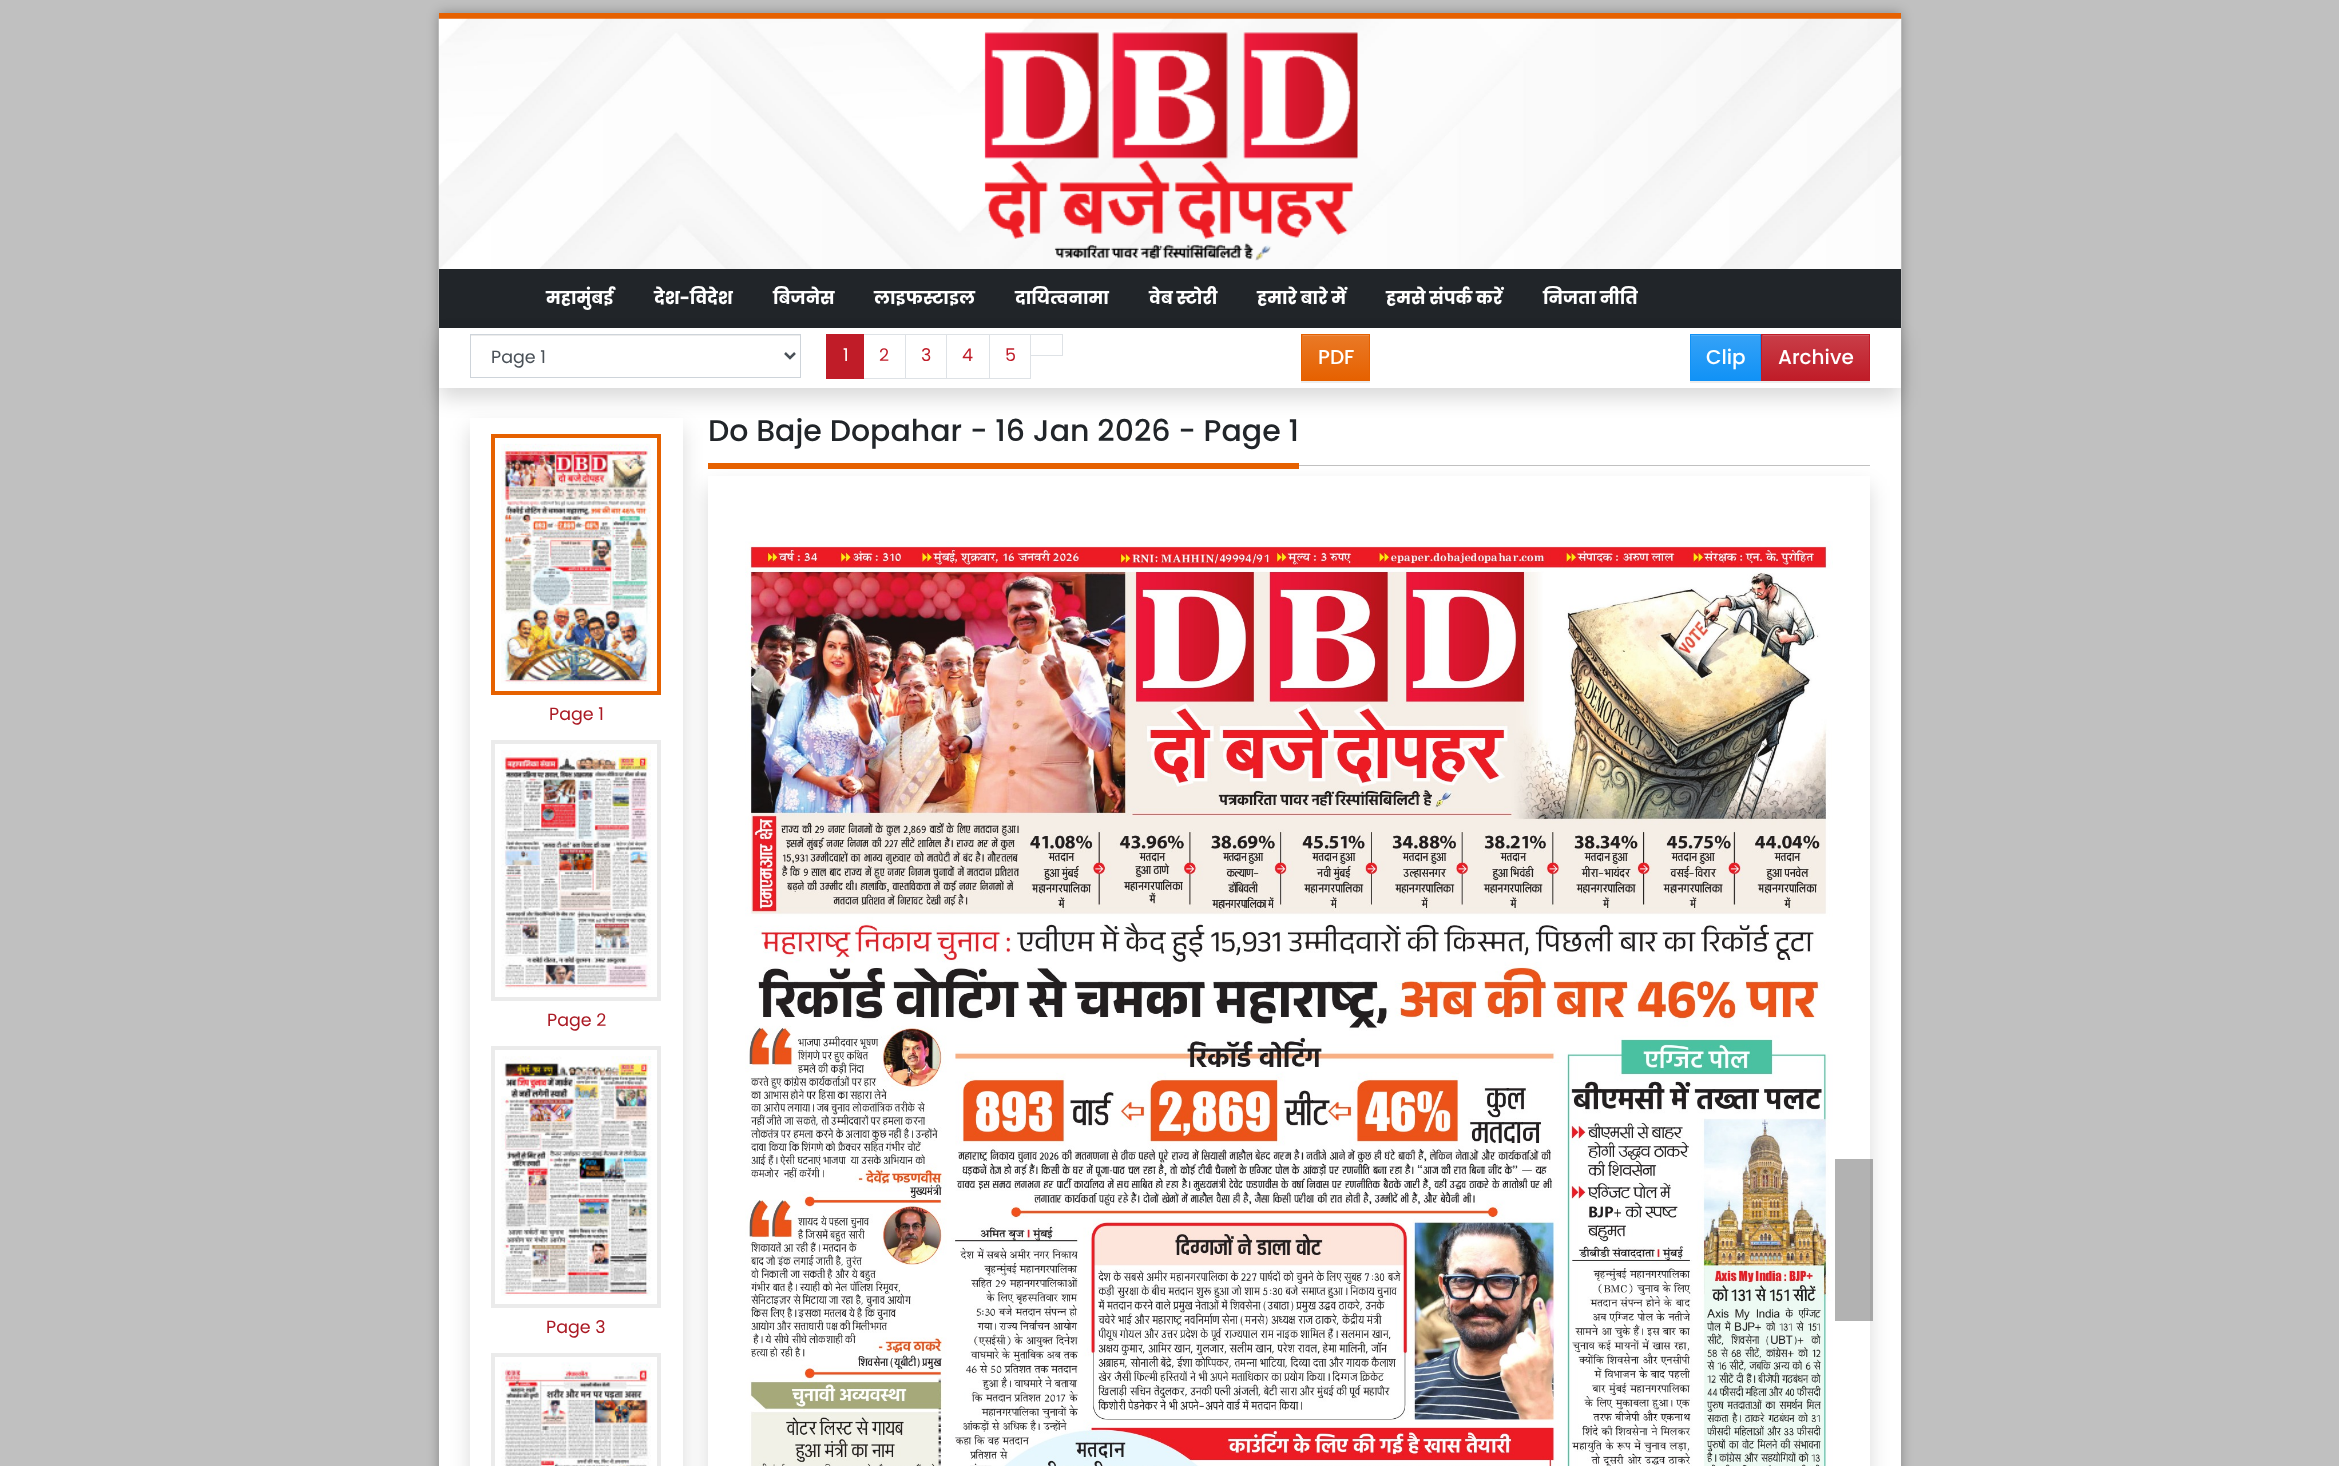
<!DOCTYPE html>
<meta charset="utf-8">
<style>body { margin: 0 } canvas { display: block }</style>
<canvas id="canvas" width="2339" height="1466"></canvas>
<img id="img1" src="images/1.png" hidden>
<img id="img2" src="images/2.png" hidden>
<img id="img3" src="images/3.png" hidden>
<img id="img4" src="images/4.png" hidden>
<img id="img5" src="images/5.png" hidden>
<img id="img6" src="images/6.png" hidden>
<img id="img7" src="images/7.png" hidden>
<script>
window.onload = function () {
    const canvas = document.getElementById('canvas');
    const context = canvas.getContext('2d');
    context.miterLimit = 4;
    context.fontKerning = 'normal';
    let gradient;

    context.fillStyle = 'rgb(192, 192, 192)';
    context.fillRect(0, 0, 2339, 1466);
    context.fillStyle = 'rgba(0, 0, 0, 0.3)';
    context.filter = 'blur(6px)';
    context.beginPath();
    context.rect(439, 13, 1462, 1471);
    context.fill();
    context.filter = 'none';
    context.fillStyle = 'rgb(255, 255, 255)';
    context.fillRect(439, 388, 1462, 1078);
    context.fillStyle = 'rgb(230, 97, 0)';
    context.fillRect(439, 13, 1462, 6);
    context.drawImage(document.getElementById('img1'), 438, 18, 1464, 310);
    context.drawImage(document.getElementById('img2'), 984, 32, 374, 229);
    context.fillStyle = 'rgb(33, 37, 41)';
    context.fillRect(439, 269, 1462, 59);
    context.fillStyle = 'rgba(0, 0, 0, 0.15)';
    context.filter = 'blur(10px)';
    context.beginPath();
    context.rect(439, 338, 1462, 60);
    context.fill();
    context.filter = 'none';
    context.fillStyle = 'rgb(255, 255, 255)';
    context.fillRect(439, 328, 1462, 60);
    context.fillStyle = 'rgb(236, 236, 236)';
    context.fillRect(471, 335, 329, 1);
    context.strokeStyle = 'rgb(206, 212, 218)';
    context.strokeRect(470.5, 334.5, 330, 43);
    context.beginPath();
    context.moveTo(785, 353);
    context.lineTo(790, 358);
    context.lineTo(795, 353);
    context.strokeStyle = 'rgb(73, 80, 87)';
    context.lineWidth = 2.5;
    context.stroke();
    context.strokeStyle = 'rgb(222, 226, 230)';
    context.lineWidth = 1;
    context.strokeRect(863.5, 334.5, 42, 44);
    context.fillStyle = 'rgb(192, 28, 40)';
    context.fillRect(826, 334, 38, 45);
    context.strokeRect(905.5, 334.5, 42, 44);
    context.fillStyle = 'rgb(255, 255, 255)';
    context.fillRect(947, 335, 1, 43);
    context.strokeRect(946.5, 334.5, 43, 44);
    context.strokeRect(989.5, 334.5, 41, 44);
    context.strokeRect(1030.5, 334.5, 32, 21);
    context.fillStyle = 'rgba(0, 0, 0, 0.07)';
    context.filter = 'blur(0.5px)';
    context.beginPath();
    context.rect(1301, 335, 69, 48);
    context.fill();
    context.filter = 'none';
    gradient = context.createLinearGradient(1336, 335, 1336, 380);
    gradient.addColorStop(0, 'rgb(234, 121, 38)');
    gradient.addColorStop(1, 'rgb(230, 97, 0)');
    context.fillStyle = gradient;
    context.fillRect(1302, 335, 67, 45);
    context.fillStyle = 'rgb(237, 141, 71)';
    context.fillRect(1303, 335, 66, 1);
    context.strokeStyle = 'rgb(230, 97, 0)';
    context.strokeRect(1301.5, 334.5, 68, 46);
    context.fillStyle = 'rgba(0, 0, 0, 0.07)';
    context.filter = 'blur(0.5px)';
    context.beginPath();
    context.rect(1690, 335, 71, 48);
    context.fill();
    context.filter = 'none';
    gradient = context.createLinearGradient(1726, 335, 1726, 380);
    gradient.addColorStop(0, 'rgb(53, 162, 247)');
    gradient.addColorStop(1, 'rgb(17, 146, 246)');
    context.fillStyle = gradient;
    context.fillRect(1691, 336, 69, 44);
    context.fillStyle = 'rgb(83, 176, 248)';
    context.fillRect(1691, 335, 69, 1);
    context.strokeStyle = 'rgb(17, 146, 246)';
    context.strokeRect(1690.5, 334.5, 70, 46);
    context.fillStyle = 'rgba(0, 0, 0, 0.07)';
    context.filter = 'blur(0.5px)';
    context.beginPath();
    context.rect(1761, 335, 109, 48);
    context.fill();
    context.filter = 'none';
    gradient = context.createLinearGradient(1816, 335, 1816, 380);
    gradient.addColorStop(0, 'rgb(201, 62, 72)');
    gradient.addColorStop(1, 'rgb(192, 28, 40)');
    context.fillStyle = gradient;
    context.fillRect(1762, 335, 107, 45);
    context.fillStyle = 'rgb(209, 91, 99)';
    context.fillRect(1763, 335, 106, 1);
    context.strokeStyle = 'rgb(192, 28, 40)';
    context.strokeRect(1761.5, 334.5, 108, 46);
    context.fillStyle = 'rgb(192, 192, 192)';
    context.fillRect(1299, 465, 571, 1);
    context.save();
    context.beginPath();
    context.moveTo(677, 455);
    context.lineTo(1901, 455);
    context.lineTo(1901, 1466);
    context.lineTo(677, 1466);
    context.closePath();
    context.moveTo(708, 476);
    context.lineTo(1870, 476);
    context.lineTo(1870, 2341);
    context.lineTo(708, 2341);
    context.closePath();
    context.clip('evenodd');
    context.fillStyle = 'rgba(0, 0, 0, 0.15)';
    context.filter = 'blur(10px)';
    context.beginPath();
    context.rect(708, 486, 1162, 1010);
    context.fill();
    context.filter = 'none';
    context.restore();
    context.save();
    context.beginPath();
    context.moveTo(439, 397);
    context.lineTo(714, 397);
    context.lineTo(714, 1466);
    context.lineTo(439, 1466);
    context.closePath();
    context.moveTo(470, 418);
    context.lineTo(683, 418);
    context.lineTo(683, 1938);
    context.lineTo(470, 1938);
    context.closePath();
    context.clip('evenodd');
    context.fillStyle = 'rgba(0, 0, 0, 0.15)';
    context.filter = 'blur(10px)';
    context.beginPath();
    context.rect(470, 428, 213, 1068);
    context.fill();
    context.filter = 'none';
    context.restore();
    context.fillStyle = 'rgb(230, 97, 0)';
    context.fillRect(708, 463, 591, 6);
    context.drawImage(document.getElementById('img3'), 745, 541, 1088, 925);
    context.fillStyle = 'rgba(0, 0, 0, 0.3)';
    context.fillRect(1835, 1159, 38, 162);
    context.strokeStyle = 'rgb(230, 97, 0)';
    context.lineWidth = 4;
    context.strokeRect(493, 436, 166, 257);
    context.drawImage(document.getElementById('img4'), 501, 443, 150, 241);
    context.strokeStyle = 'rgb(235, 235, 235)';
    context.strokeRect(493, 742, 166, 257);
    context.drawImage(document.getElementById('img5'), 501, 750, 150, 240);
    context.strokeRect(493, 1048, 166, 258);
    context.drawImage(document.getElementById('img6'), 501, 1056, 151, 240);
    context.strokeRect(493, 1355, 166, 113);
    context.drawImage(document.getElementById('img7'), 501, 1362, 150, 104);
    context.font = 'bold 17.5px Poppins';
    context.fillStyle = 'rgb(255, 255, 255)';
    context.fillText('महामुंबई', 546, 304);
    context.fillText('देश-विदेश', 654, 304);
    context.fillText('बिजनेस', 773, 304);
    context.fillText('लाइफस्टाइल', 874, 304);
    context.fillText('दायित्वनामा', 1015, 304);
    context.fillText('वेब स्टोरी', 1149, 304);
    context.fillText('हमारे बारे में', 1257, 304);
    context.fillText('हमसे संपर्क करें', 1386, 304);
    context.fillText('निजता नीति', 1543, 304);
    context.font = '17.5px Poppins';
    context.fillStyle = 'rgb(73, 80, 87)';
    context.fillText('Page 1', 491, 363);
    context.fillStyle = 'rgb(255, 255, 255)';
    context.fillText('1', 843, 361);
    context.fillStyle = 'rgb(192, 28, 40)';
    context.fillText('2', 879, 361);
    context.fillText('3', 921, 361);
    context.fillText('4', 962, 361);
    context.fillText('5', 1005, 361);
    context.font = '500 20px Poppins';
    context.fillStyle = 'rgb(255, 255, 255)';
    context.fillText('PDF', 1318, 364);
    context.fillText('Clip', 1706, 364);
    context.fillText('Archive', 1778, 364);
    context.font = '500 30px Poppins';
    context.fillStyle = 'rgb(33, 37, 41)';
    context.fillText('Do Baje Dopahar - 16 Jan 2026 - Page 1', 708, 441);
    context.font = '17.5px Poppins';
    context.fillStyle = 'rgb(170, 25, 35)';
    context.fillText('Page 1', 549, 720);
    context.fillText('Page 2', 547, 1026);
    context.fillText('Page 3', 546, 1333);
};
</script>
